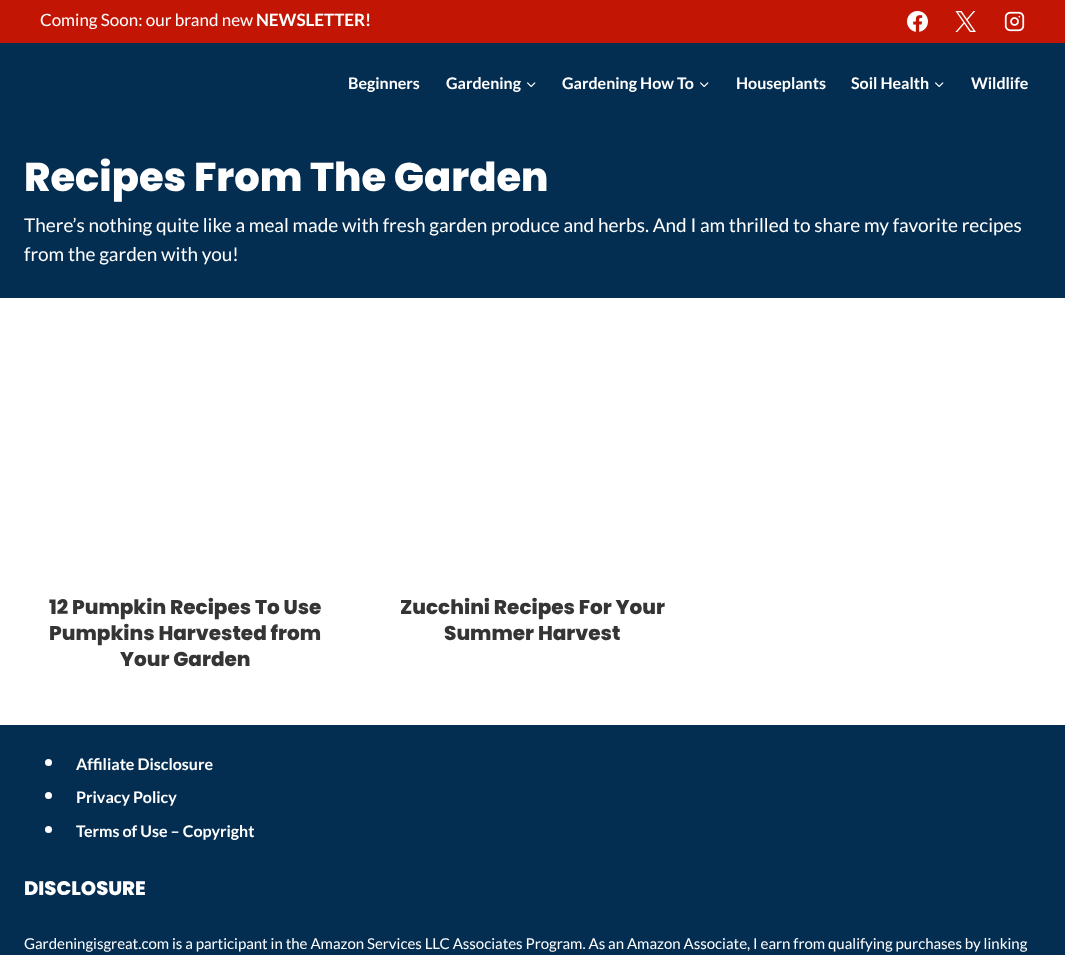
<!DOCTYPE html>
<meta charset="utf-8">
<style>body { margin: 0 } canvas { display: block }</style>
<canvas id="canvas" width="1065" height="955"></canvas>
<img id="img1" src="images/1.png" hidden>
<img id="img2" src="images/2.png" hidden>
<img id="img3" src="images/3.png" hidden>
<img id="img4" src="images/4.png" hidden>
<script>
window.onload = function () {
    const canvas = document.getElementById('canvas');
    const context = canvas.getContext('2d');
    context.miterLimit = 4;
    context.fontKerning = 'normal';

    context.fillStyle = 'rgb(255, 255, 255)';
    context.fillRect(0, 0, 1065, 955);
    context.fillStyle = 'rgb(194, 21, 4)';
    context.fillRect(0, 0, 1065, 43);
    context.drawImage(document.getElementById('img1'), 907, 11, 21, 21);
    context.drawImage(document.getElementById('img2'), 955, 11, 21, 21);
    context.drawImage(document.getElementById('img3'), 1004, 11, 21, 21);
    context.fillStyle = 'rgb(3, 45, 81)';
    context.fillRect(0, 43, 1065, 255);
    context.drawImage(document.getElementById('img4'), 527, 82, 9, 6);
    context.drawImage(document.getElementById('img4'), 700, 82, 9, 6);
    context.drawImage(document.getElementById('img4'), 935, 82, 9, 6);
    context.fillRect(0, 725, 1065, 230);
    context.fillStyle = 'rgb(255, 255, 255)';
    context.beginPath();
    context.arc(48.5, 762.5, 3.5, 0, 2 * Math.PI);
    context.fill();
    context.beginPath();
    context.arc(48.5, 795.5, 3.5, 0, 2 * Math.PI);
    context.fill();
    context.beginPath();
    context.arc(48.5, 829.5, 3.5, 0, 2 * Math.PI);
    context.fill();
    context.font = '17px Lato';
    context.fillText('Coming Soon: our brand new', 40, 26);
    context.font = 'bold 17px Lato';
    context.fillText('NEWSLETTER!', 256, 26);
    context.font = 'bold 16px Lato';
    context.fillText('Beginners', 348, 89);
    context.fillText('Gardening', 446, 89);
    context.fillText('Gardening How To', 562, 89);
    context.fillText('Houseplants', 736, 89);
    context.fillText('Soil Health', 851, 89);
    context.fillText('Wildlife', 971, 89);
    context.font = '800 40px Poppins';
    context.fillText('Recipes From The Garden', 24, 191);
    context.font = '19px Lato';
    context.fillText('There’s nothing quite like a meal made with fresh garden produce and herbs. And I am thrilled to share my favorite recipes', 24, 232);
    context.fillText('from the garden with you!', 24, 261);
    context.font = '800 20px Poppins';
    context.fillStyle = 'rgb(53, 53, 53)';
    context.fillText('12 Pumpkin Recipes To Use', 49, 614);
    context.fillText('Pumpkins Harvested from', 49, 640);
    context.fillText('Your Garden', 120, 666);
    context.fillText('Zucchini Recipes For Your', 400, 614);
    context.fillText('Summer Harvest', 444, 640);
    context.font = 'bold 16px Lato';
    context.fillStyle = 'rgb(255, 255, 255)';
    context.fillText('Affiliate Disclosure', 76, 770);
    context.fillText('Privacy Policy', 76, 803);
    context.fillText('Terms of Use – Copyright', 76, 837);
    context.font = '800 19.5px Poppins';
    context.fillText('DISCLOSURE', 24, 895);
    context.font = '15px Lato';
    context.fillText('Gardeningisgreat.com is a participant in the Amazon Services LLC Associates Program. As an Amazon Associate, I earn from qualifying purchases by linking', 24, 949);
};
</script>
